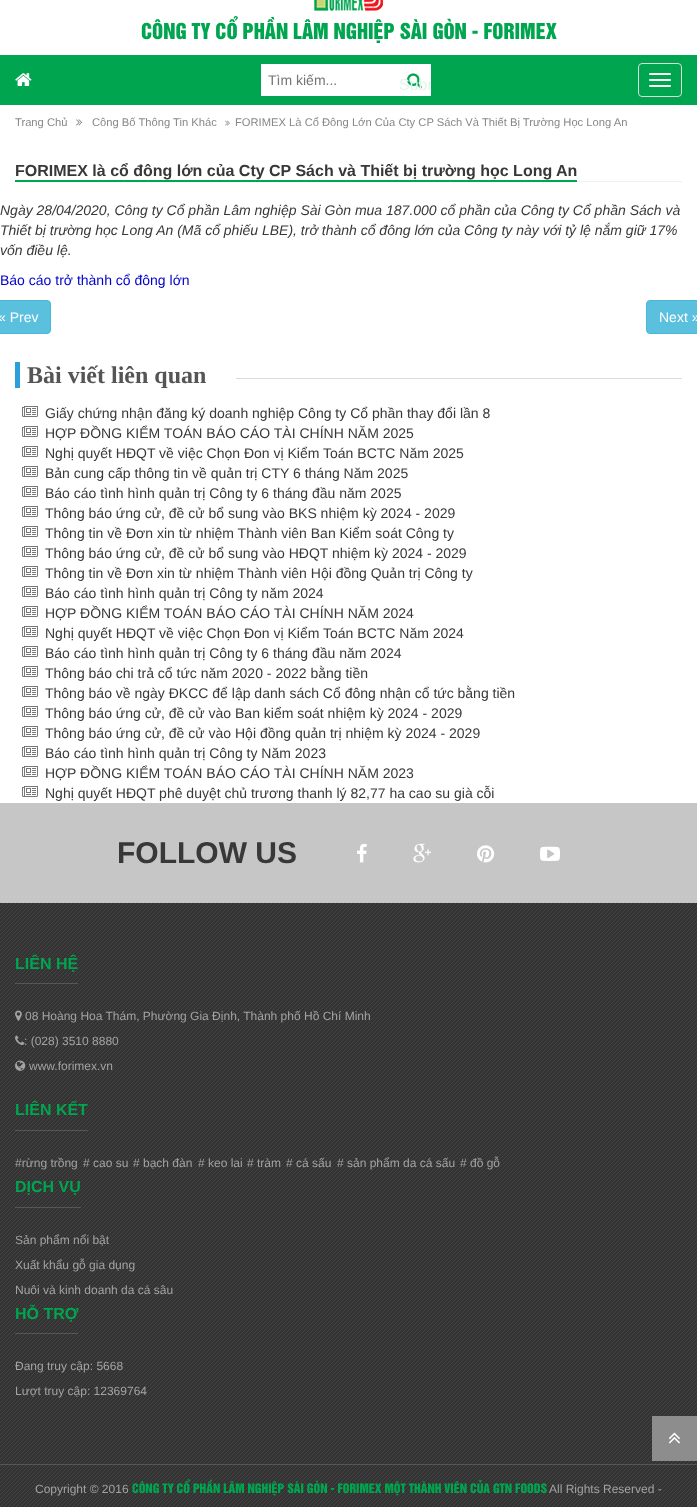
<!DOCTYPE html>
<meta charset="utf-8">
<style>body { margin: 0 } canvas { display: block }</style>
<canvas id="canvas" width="697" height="1507"></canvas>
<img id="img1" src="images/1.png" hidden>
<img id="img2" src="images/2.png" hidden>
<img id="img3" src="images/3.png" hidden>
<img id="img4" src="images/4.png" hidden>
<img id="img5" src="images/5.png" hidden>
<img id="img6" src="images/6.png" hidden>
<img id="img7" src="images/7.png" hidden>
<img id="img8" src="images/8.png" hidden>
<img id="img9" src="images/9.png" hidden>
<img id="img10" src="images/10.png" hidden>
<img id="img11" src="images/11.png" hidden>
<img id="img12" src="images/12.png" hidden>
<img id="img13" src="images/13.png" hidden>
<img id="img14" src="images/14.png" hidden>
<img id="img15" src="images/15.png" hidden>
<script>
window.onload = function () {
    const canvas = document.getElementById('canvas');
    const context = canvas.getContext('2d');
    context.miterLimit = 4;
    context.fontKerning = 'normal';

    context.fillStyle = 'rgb(255, 255, 255)';
    context.fillRect(0, 0, 697, 1507);
    context.drawImage(document.getElementById('img1'), 314, 0, 69, 11);
    context.fillStyle = 'rgb(0, 165, 79)';
    context.fillRect(0, 55, 697, 50);
    context.drawImage(document.getElementById('img2'), 15, 73, 17, 13);
    context.fillStyle = 'rgb(255, 255, 255)';
    context.fillRect(261, 64, 170, 32);
    context.drawImage(document.getElementById('img3'), 407, 73, 15, 16);
    context.beginPath();
    context.roundRect(638.5, 63.5, 43, 33, 3.5);
    context.strokeStyle = 'rgb(221, 221, 221)';
    context.stroke();
    context.beginPath();
    context.roundRect(649, 73, 22, 2, 1);
    context.fill();
    context.beginPath();
    context.roundRect(649, 79, 22, 2, 1);
    context.fill();
    context.beginPath();
    context.roundRect(649, 85, 22, 2, 1);
    context.fill();
    context.drawImage(document.getElementById('img4'), 76, 119, 6, 7);
    context.drawImage(document.getElementById('img5'), 225, 120, 5, 6);
    context.fillStyle = 'rgb(241, 241, 241)';
    context.fillRect(577, 181, 105, 1);
    context.fillStyle = 'rgb(0, 165, 79)';
    context.fillRect(15, 180, 562, 2);
    context.fillStyle = 'rgb(91, 192, 222)';
    context.beginPath();
    context.roundRect(-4.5, 300.5, 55, 33, 3.5);
    context.fill();
    context.strokeStyle = 'rgb(70, 184, 218)';
    context.stroke();
    context.beginPath();
    context.roundRect(646.5, 300.5, 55, 33, 3.5);
    context.fill();
    context.stroke();
    context.fillStyle = 'rgb(43, 159, 218)';
    context.fillRect(15, 362, 5, 26);
    context.fillStyle = 'rgb(220, 220, 220)';
    context.fillRect(236, 378, 446, 1);
    context.drawImage(document.getElementById('img6'), 22, 406, 16, 11);
    context.drawImage(document.getElementById('img6'), 22, 426, 16, 11);
    context.drawImage(document.getElementById('img6'), 22, 446, 16, 11);
    context.drawImage(document.getElementById('img6'), 22, 466, 16, 11);
    context.drawImage(document.getElementById('img6'), 22, 486, 16, 11);
    context.drawImage(document.getElementById('img6'), 22, 506, 16, 11);
    context.drawImage(document.getElementById('img6'), 22, 526, 16, 11);
    context.drawImage(document.getElementById('img6'), 22, 546, 16, 11);
    context.drawImage(document.getElementById('img6'), 22, 566, 16, 11);
    context.drawImage(document.getElementById('img6'), 22, 586, 16, 11);
    context.drawImage(document.getElementById('img6'), 22, 606, 16, 11);
    context.drawImage(document.getElementById('img6'), 22, 626, 16, 11);
    context.drawImage(document.getElementById('img6'), 22, 646, 16, 11);
    context.drawImage(document.getElementById('img6'), 22, 666, 16, 11);
    context.drawImage(document.getElementById('img6'), 22, 686, 16, 11);
    context.drawImage(document.getElementById('img6'), 22, 706, 16, 11);
    context.drawImage(document.getElementById('img6'), 22, 726, 16, 11);
    context.drawImage(document.getElementById('img6'), 22, 746, 16, 11);
    context.drawImage(document.getElementById('img6'), 22, 766, 16, 11);
    context.drawImage(document.getElementById('img6'), 22, 786, 16, 11);
    context.fillStyle = 'rgb(198, 198, 198)';
    context.fillRect(0, 803, 697, 100);
    context.drawImage(document.getElementById('img7'), 357, 843, 10, 20);
    context.drawImage(document.getElementById('img8'), 413, 843, 18, 20);
    context.drawImage(document.getElementById('img9'), 477, 845, 18, 18);
    context.drawImage(document.getElementById('img10'), 540, 846, 20, 15);
    context.drawImage(document.getElementById('img11'), 0, 903, 697, 604);
    context.fillStyle = 'rgba(215, 215, 215, 0.2)';
    context.fillRect(15, 983, 63, 1);
    context.drawImage(document.getElementById('img12'), 15, 1010, 7, 11);
    context.drawImage(document.getElementById('img13'), 15, 1035, 10, 10);
    context.drawImage(document.getElementById('img14'), 15, 1060, 11, 11);
    context.fillRect(15, 1130, 73, 1);
    context.fillRect(15, 1207, 66, 1);
    context.fillRect(15, 1333, 63, 1);
    context.fillRect(0, 1464, 697, 1);
    context.fillStyle = 'rgb(141, 141, 141)';
    context.fillRect(652, 1416, 45, 45);
    context.drawImage(document.getElementById('img15'), 668, 1432, 12, 12);
    context.font = '20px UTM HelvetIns';
    context.fillStyle = 'rgb(0, 165, 79)';
    context.fillText('CÔNG TY CỔ PHẦN LÂM NGHIỆP SÀI GÒN - FORIMEX', 141, 39);
    context.font = '14px Liberation Sans';
    context.fillStyle = 'rgb(117, 117, 117)';
    context.fillText('Tìm kiếm...', 268, 85);
    context.save();
    context.beginPath();
    context.rect(399, 64, 32, 32);
    context.clip();
    context.font = '16px Liberation Sans';
    context.fillStyle = 'rgb(226, 245, 235)';
    context.fillText('Subm', 399, 90);
    context.restore();
    context.font = '11.2px Liberation Sans';
    context.fillStyle = 'rgb(136, 136, 136)';
    context.fillText('Trang Chủ', 15, 126);
    context.fillText('Công Bố Thông Tin Khác', 92, 126);
    context.fillText('FORIMEX Là Cổ Đông Lớn Của Cty CP Sách Và Thiết Bị Trường Học Long An', 235, 126);
    context.font = 'bold 16px Liberation Sans';
    context.fillStyle = 'rgb(56, 56, 56)';
    context.fillText('FORIMEX là cổ đông lớn của Cty CP Sách và Thiết bị trường học Long An', 15, 176);
    context.font = 'italic 14px Liberation Sans';
    context.fillText('Ngày 28/04/2020, Công ty Cổ phần Lâm nghiệp Sài Gòn mua 187.000 cổ phần của Công ty Cổ phần Sách và', 0, 215);
    context.fillText('Thiết bị trường học Long An (Mã cổ phiếu LBE), trở thành cổ đông lớn của Công ty này với tỷ lệ nắm giữ 17%', 0, 235);
    context.fillText('vốn điều lệ.', 0, 255);
    context.font = '14px Liberation Sans';
    context.fillStyle = 'rgb(0, 0, 205)';
    context.fillText('Báo cáo trở thành cổ đông lớn', 0, 285);
    context.fillStyle = 'rgb(255, 255, 255)';
    context.fillText('« Prev', -2, 322);
    context.fillText('Next »', 659, 322);
    context.font = 'bold 24px Liberation Serif';
    context.fillStyle = 'rgb(85, 85, 85)';
    context.fillText('Bài viết liên quan', 27, 383);
    context.font = '14px Liberation Sans';
    context.fillStyle = 'rgb(56, 56, 56)';
    context.fillText('Giấy chứng nhận đăng ký doanh nghiệp Công ty Cổ phần thay đổi lần 8', 45, 418);
    context.fillText('HỢP ĐỒNG KIỂM TOÁN BÁO CÁO TÀI CHÍNH NĂM 2025', 45, 438);
    context.fillText('Nghị quyết HĐQT về việc Chọn Đon vị Kiểm Toán BCTC Năm 2025', 45, 458);
    context.fillText('Bản cung cấp thông tin về quản trị CTY 6 tháng Năm 2025', 45, 478);
    context.fillText('Báo cáo tình hình quản trị Công ty 6 tháng đầu năm 2025', 45, 498);
    context.fillText('Thông báo ứng cử, đề cử bổ sung vào BKS nhiệm kỳ 2024 - 2029', 45, 518);
    context.fillText('Thông tin về Đơn xin từ nhiệm Thành viên Ban Kiểm soát Công ty', 45, 538);
    context.fillText('Thông báo ứng cử, đề cử bổ sung vào HĐQT nhiệm kỳ 2024 - 2029', 45, 558);
    context.fillText('Thông tin về Đơn xin từ nhiệm Thành viên Hội đồng Quản trị Công ty', 45, 578);
    context.fillText('Báo cáo tình hình quản trị Công ty năm 2024', 45, 598);
    context.fillText('HỢP ĐỒNG KIỂM TOÁN BÁO CÁO TÀI CHÍNH NĂM 2024', 45, 618);
    context.fillText('Nghị quyết HĐQT về việc Chọn Đon vị Kiểm Toán BCTC Năm 2024', 45, 638);
    context.fillText('Báo cáo tình hình quản trị Công ty 6 tháng đầu năm 2024', 45, 658);
    context.fillText('Thông báo chi trả cổ tức năm 2020 - 2022 bằng tiền', 45, 678);
    context.fillText('Thông báo về ngày ĐKCC để lập danh sách Cổ đông nhận cổ tức bằng tiền', 45, 698);
    context.fillText('Thông báo ứng cử, đề cử vào Ban kiểm soát nhiệm kỳ 2024 - 2029', 45, 718);
    context.fillText('Thông báo ứng cử, đề cử vào Hội đồng quản trị nhiệm kỳ 2024 - 2029', 45, 738);
    context.fillText('Báo cáo tình hình quản trị Công ty Năm 2023', 45, 758);
    context.fillText('HỢP ĐỒNG KIỂM TOÁN BÁO CÁO TÀI CHÍNH NĂM 2023', 45, 778);
    context.fillText('Nghị quyết HĐQT phê duyệt chủ trương thanh lý 82,77 ha cao su già cỗi', 45, 798);
    context.font = 'bold 30px Liberation Sans';
    context.fillText('FOLLOW US', 117, 863);
    context.font = 'bold 16px Liberation Sans';
    context.fillStyle = 'rgb(0, 165, 79)';
    context.fillText('LIÊN HỆ', 15, 969);
    context.font = '12px Liberation Sans';
    context.fillStyle = 'rgb(163, 163, 163)';
    context.fillText('08 Hoàng Hoa Thám, Phường Gia Định, Thành phố Hồ Chí Minh', 25, 1020);
    context.fillText(': (028) 3510 8880', 24, 1045);
    context.fillText('www.forimex.vn', 29, 1070);
    context.font = 'bold 16px Liberation Sans';
    context.fillStyle = 'rgb(0, 165, 79)';
    context.fillText('LIÊN KẾT', 15, 1115);
    context.font = '12px Liberation Sans';
    context.fillStyle = 'rgb(163, 163, 163)';
    context.fillText('#rừng trồng', 15, 1167);
    context.fillText('# cao su', 83, 1167);
    context.fillText('# bạch đàn', 133, 1167);
    context.fillText('# keo lai', 198, 1167);
    context.fillText('# tràm', 247, 1167);
    context.fillText('# cá sấu', 286, 1167);
    context.fillText('# sản phẩm da cá sấu', 337, 1167);
    context.fillText('# đồ gỗ', 460, 1167);
    context.font = 'bold 16px Liberation Sans';
    context.fillStyle = 'rgb(0, 165, 79)';
    context.fillText('DỊCH VỤ', 15, 1192);
    context.font = '12px Liberation Sans';
    context.fillStyle = 'rgb(163, 163, 163)';
    context.fillText('Sản phẩm nổi bật', 15, 1244);
    context.fillText('Xuất khẩu gỗ gia dụng', 15, 1269);
    context.fillText('Nuôi và kinh doanh da cá sâu', 15, 1294);
    context.font = 'bold 16px Liberation Sans';
    context.fillStyle = 'rgb(0, 165, 79)';
    context.fillText('HỖ TRỢ', 15, 1319);
    context.font = '12px Liberation Sans';
    context.fillStyle = 'rgb(163, 163, 163)';
    context.fillText('Đang truy cập: 5668', 15, 1370);
    context.fillText('Lượt truy cập: 12369764', 15, 1395);
    context.fillText('Copyright © 2016', 35, 1493);
    context.font = '12px UTM HelvetIns';
    context.fillStyle = 'rgb(0, 165, 79)';
    context.fillText('CÔNG TY CỔ PHẦN LÂM NGHIỆP SÀI GÒN - FORIMEX MỘT THÀNH VIÊN CỦA GTN FOODS', 132, 1493);
    context.font = '12px Liberation Sans';
    context.fillStyle = 'rgb(163, 163, 163)';
    context.fillText('All Rights Reserved -', 549, 1493);
};
</script>
